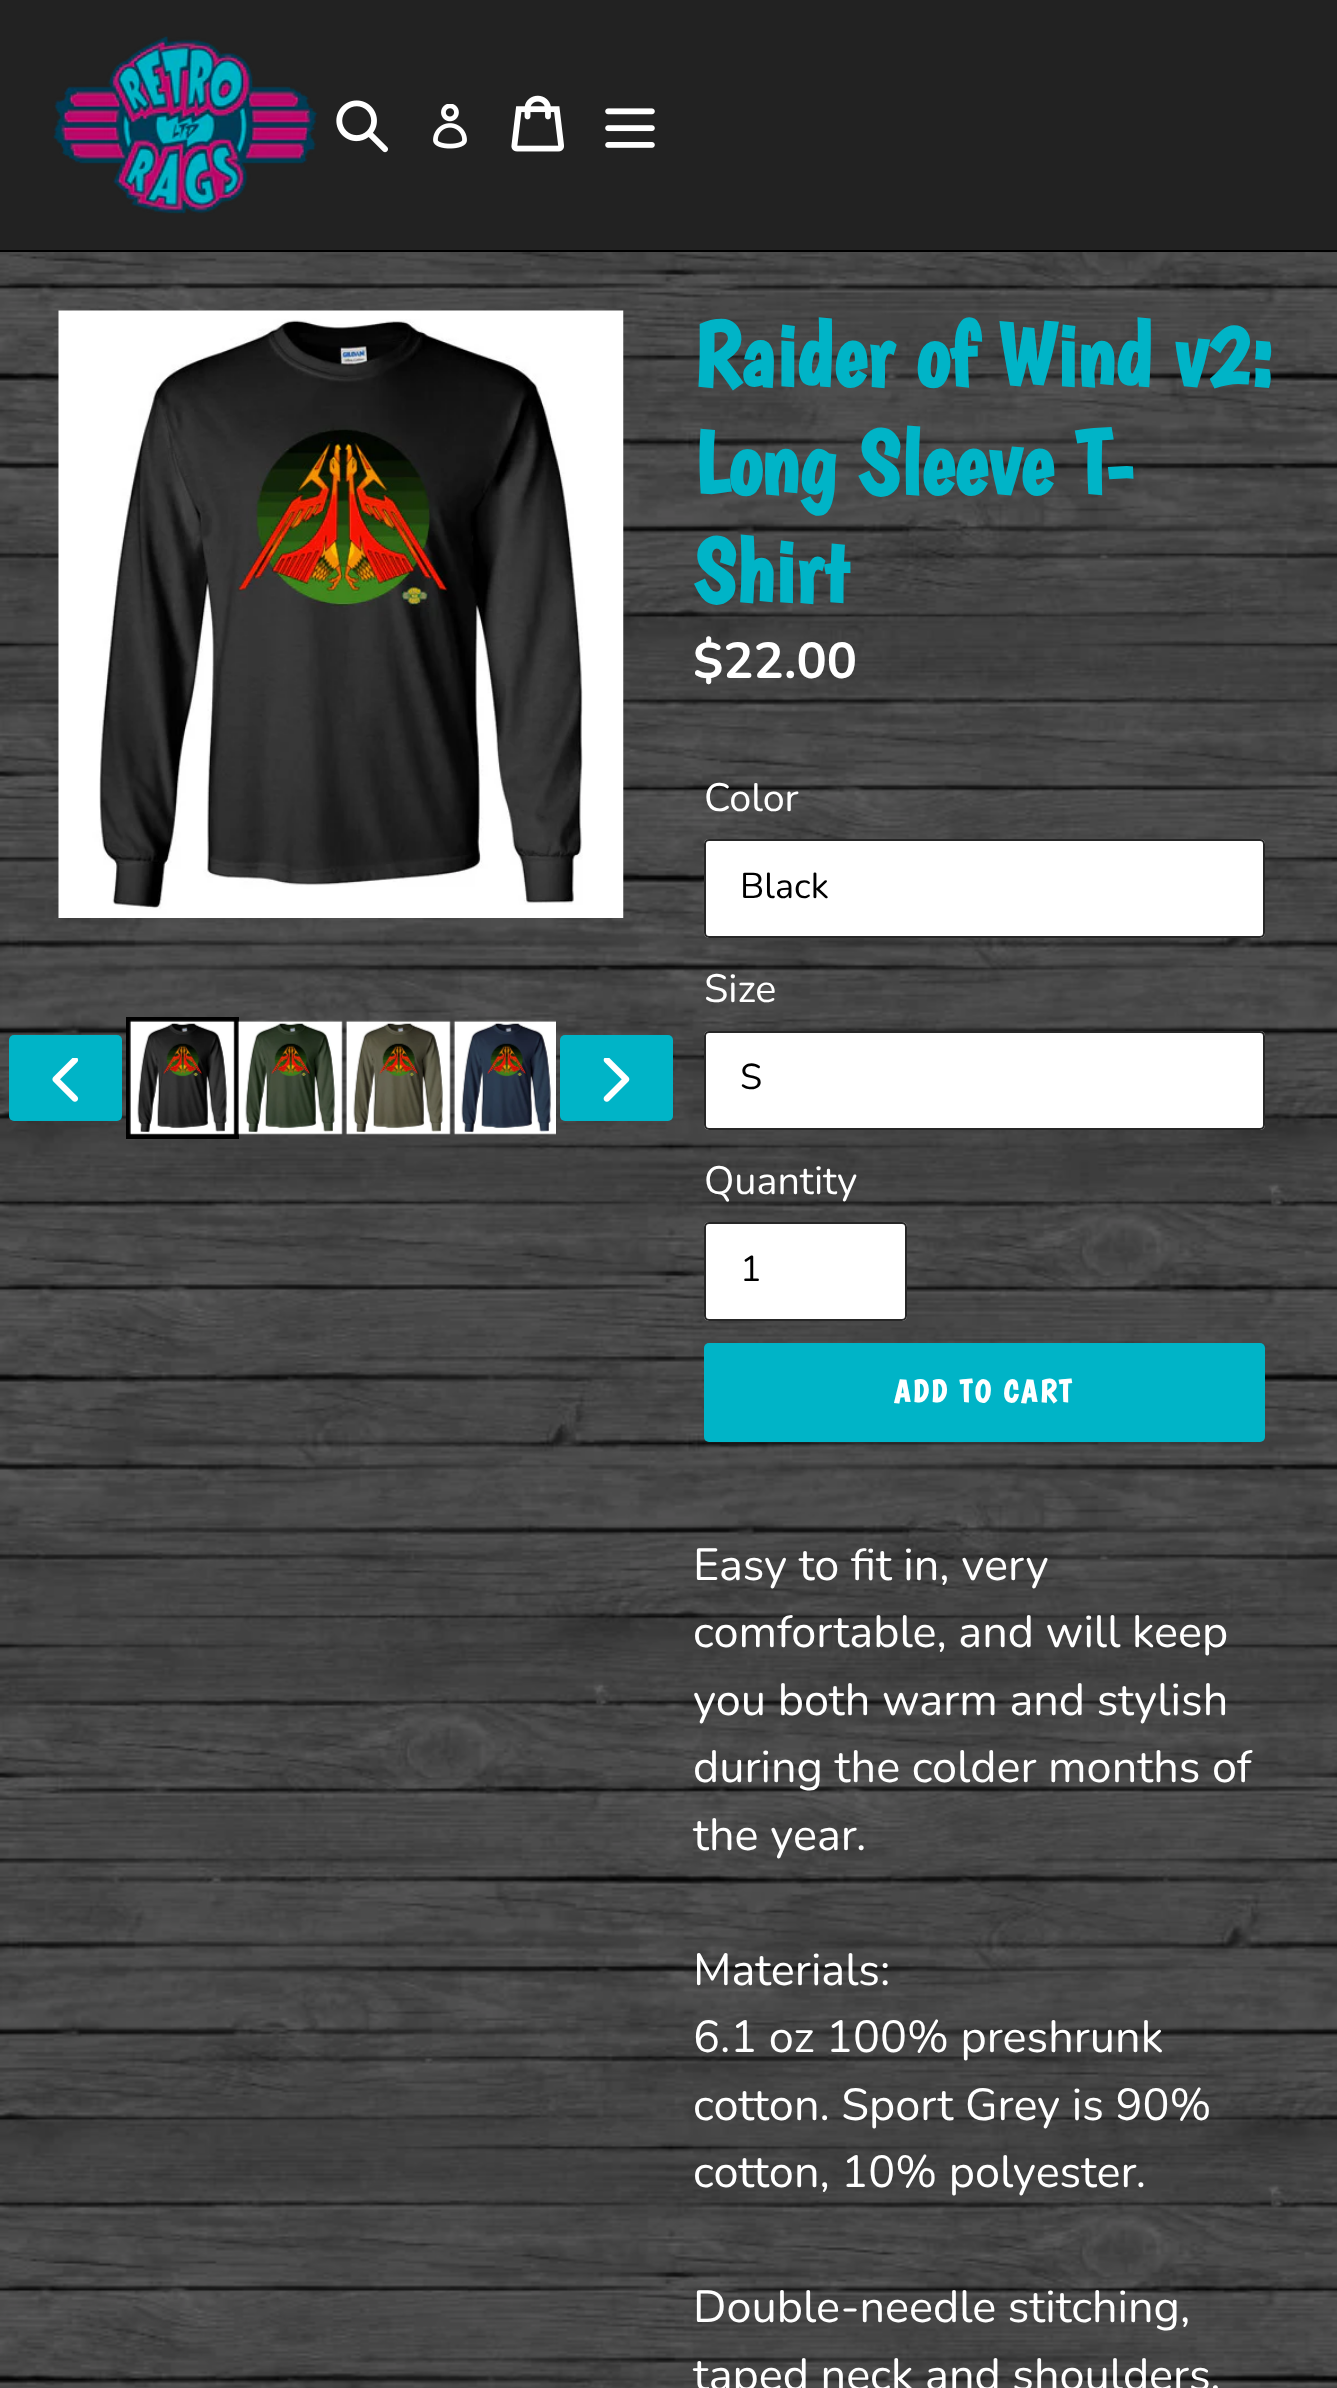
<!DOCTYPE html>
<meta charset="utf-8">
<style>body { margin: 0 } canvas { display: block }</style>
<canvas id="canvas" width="1337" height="2388"></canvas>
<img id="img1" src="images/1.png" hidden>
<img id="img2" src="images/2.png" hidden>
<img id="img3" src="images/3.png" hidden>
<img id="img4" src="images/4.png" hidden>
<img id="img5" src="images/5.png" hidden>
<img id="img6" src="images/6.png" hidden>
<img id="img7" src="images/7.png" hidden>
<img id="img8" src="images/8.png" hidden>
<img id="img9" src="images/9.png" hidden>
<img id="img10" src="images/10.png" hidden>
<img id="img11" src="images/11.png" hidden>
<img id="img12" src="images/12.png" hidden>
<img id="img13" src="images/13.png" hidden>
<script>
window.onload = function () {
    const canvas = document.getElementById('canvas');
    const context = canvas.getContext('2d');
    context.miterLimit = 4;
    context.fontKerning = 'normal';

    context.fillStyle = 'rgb(34, 34, 34)';
    context.fillRect(0, 0, 1337, 2388);
    context.fillStyle = 'rgb(0, 0, 0)';
    context.fillRect(0, 250, 1337, 2);
    context.drawImage(document.getElementById('img1'), 52, 36, 266, 178);
    context.drawImage(document.getElementById('img2'), 336, 100, 52, 53);
    context.drawImage(document.getElementById('img3'), 433, 104, 34, 45);
    context.drawImage(document.getElementById('img4'), 511, 95, 53, 57);
    context.drawImage(document.getElementById('img5'), 605, 108, 50, 40);
    context.drawImage(document.getElementById('img6'), 0, 252, 1337, 2136);
    context.drawImage(document.getElementById('img7'), 58, 310, 566, 608);
    context.fillStyle = 'rgb(0, 180, 199)';
    context.beginPath();
    context.roundRect(9, 1035, 113, 86, 5);
    context.fill();
    context.drawImage(document.getElementById('img8'), 52, 1058, 27, 44);
    context.strokeStyle = 'rgb(0, 0, 0)';
    context.lineWidth = 5;
    context.strokeRect(128.5, 1019.5, 108, 117);
    context.drawImage(document.getElementById('img9'), 129, 1020, 106, 115);
    context.drawImage(document.getElementById('img10'), 237, 1020, 106, 115);
    context.drawImage(document.getElementById('img11'), 345, 1020, 106, 115);
    context.drawImage(document.getElementById('img12'), 453, 1020, 103, 115);
    context.beginPath();
    context.roundRect(560, 1035, 113, 86, 5);
    context.fill();
    context.drawImage(document.getElementById('img13'), 603, 1058, 27, 44);
    context.fillStyle = 'rgb(255, 255, 255)';
    context.beginPath();
    context.roundRect(704, 839, 561, 99, 5);
    context.fill();
    context.beginPath();
    context.roundRect(705, 840, 559, 97, 4);
    context.strokeStyle = 'rgba(0, 0, 0, 0.85)';
    context.lineWidth = 2;
    context.stroke();
    context.beginPath();
    context.roundRect(704, 1031, 561, 99, 5);
    context.fill();
    context.beginPath();
    context.roundRect(705, 1032, 559, 97, 4);
    context.stroke();
    context.beginPath();
    context.roundRect(704, 1222, 203, 99, 5);
    context.fill();
    context.beginPath();
    context.roundRect(705, 1223, 201, 97, 4);
    context.stroke();
    context.fillStyle = 'rgb(0, 180, 199)';
    context.beginPath();
    context.roundRect(704, 1343, 561, 99, 5);
    context.fill();
    context.font = 'bold 90px Boogaloo';
    context.fillText('Raider of Wind v2:', 693, 386);
    context.fillText('Long Sleeve T-', 693, 494);
    context.fillText('Shirt', 693, 602);
    context.font = 'bold 50.5px Nunito';
    context.fillStyle = 'rgb(255, 255, 255)';
    context.fillText('$22.00', 693, 678);
    context.font = '39.5px Nunito';
    context.fillText('Color', 704, 811);
    context.font = '36px Nunito';
    context.fillStyle = 'rgb(0, 0, 0)';
    context.fillText('Black', 740, 898);
    context.font = '39.5px Nunito';
    context.fillStyle = 'rgb(255, 255, 255)';
    context.fillText('Size', 704, 1002);
    context.font = '36px Nunito';
    context.fillStyle = 'rgb(0, 0, 0)';
    context.fillText('S', 740, 1089);
    context.font = '39.5px Nunito';
    context.fillStyle = 'rgb(255, 255, 255)';
    context.fillText('Quantity', 704, 1194);
    context.font = '36px Nunito';
    context.fillStyle = 'rgb(0, 0, 0)';
    context.fillText('1', 740, 1281);
    context.letterSpacing = '2.5px';
    context.font = 'bold 31.5px Boogaloo';
    context.fillStyle = 'rgb(255, 255, 255)';
    context.fillText('ADD TO CART', 894, 1402);
    context.letterSpacing = '0px';
    context.font = '45px Nunito';
    context.fillText('Easy to fit in, very', 693, 1580);
    context.fillText('comfortable, and will keep', 693, 1647);
    context.fillText('you both warm and stylish', 693, 1715);
    context.fillText('during the colder months of', 693, 1782);
    context.fillText('the year.', 693, 1850);
    context.fillText('Materials:', 693, 1985);
    context.fillText('6.1 oz 100% preshrunk', 693, 2052);
    context.fillText('cotton. Sport Grey is 90%', 693, 2120);
    context.fillText('cotton, 10% polyester.', 693, 2187);
    context.fillText('Double-needle stitching,', 693, 2322);
    context.fillText('taped neck and shoulders.', 693, 2390);
};
</script>
